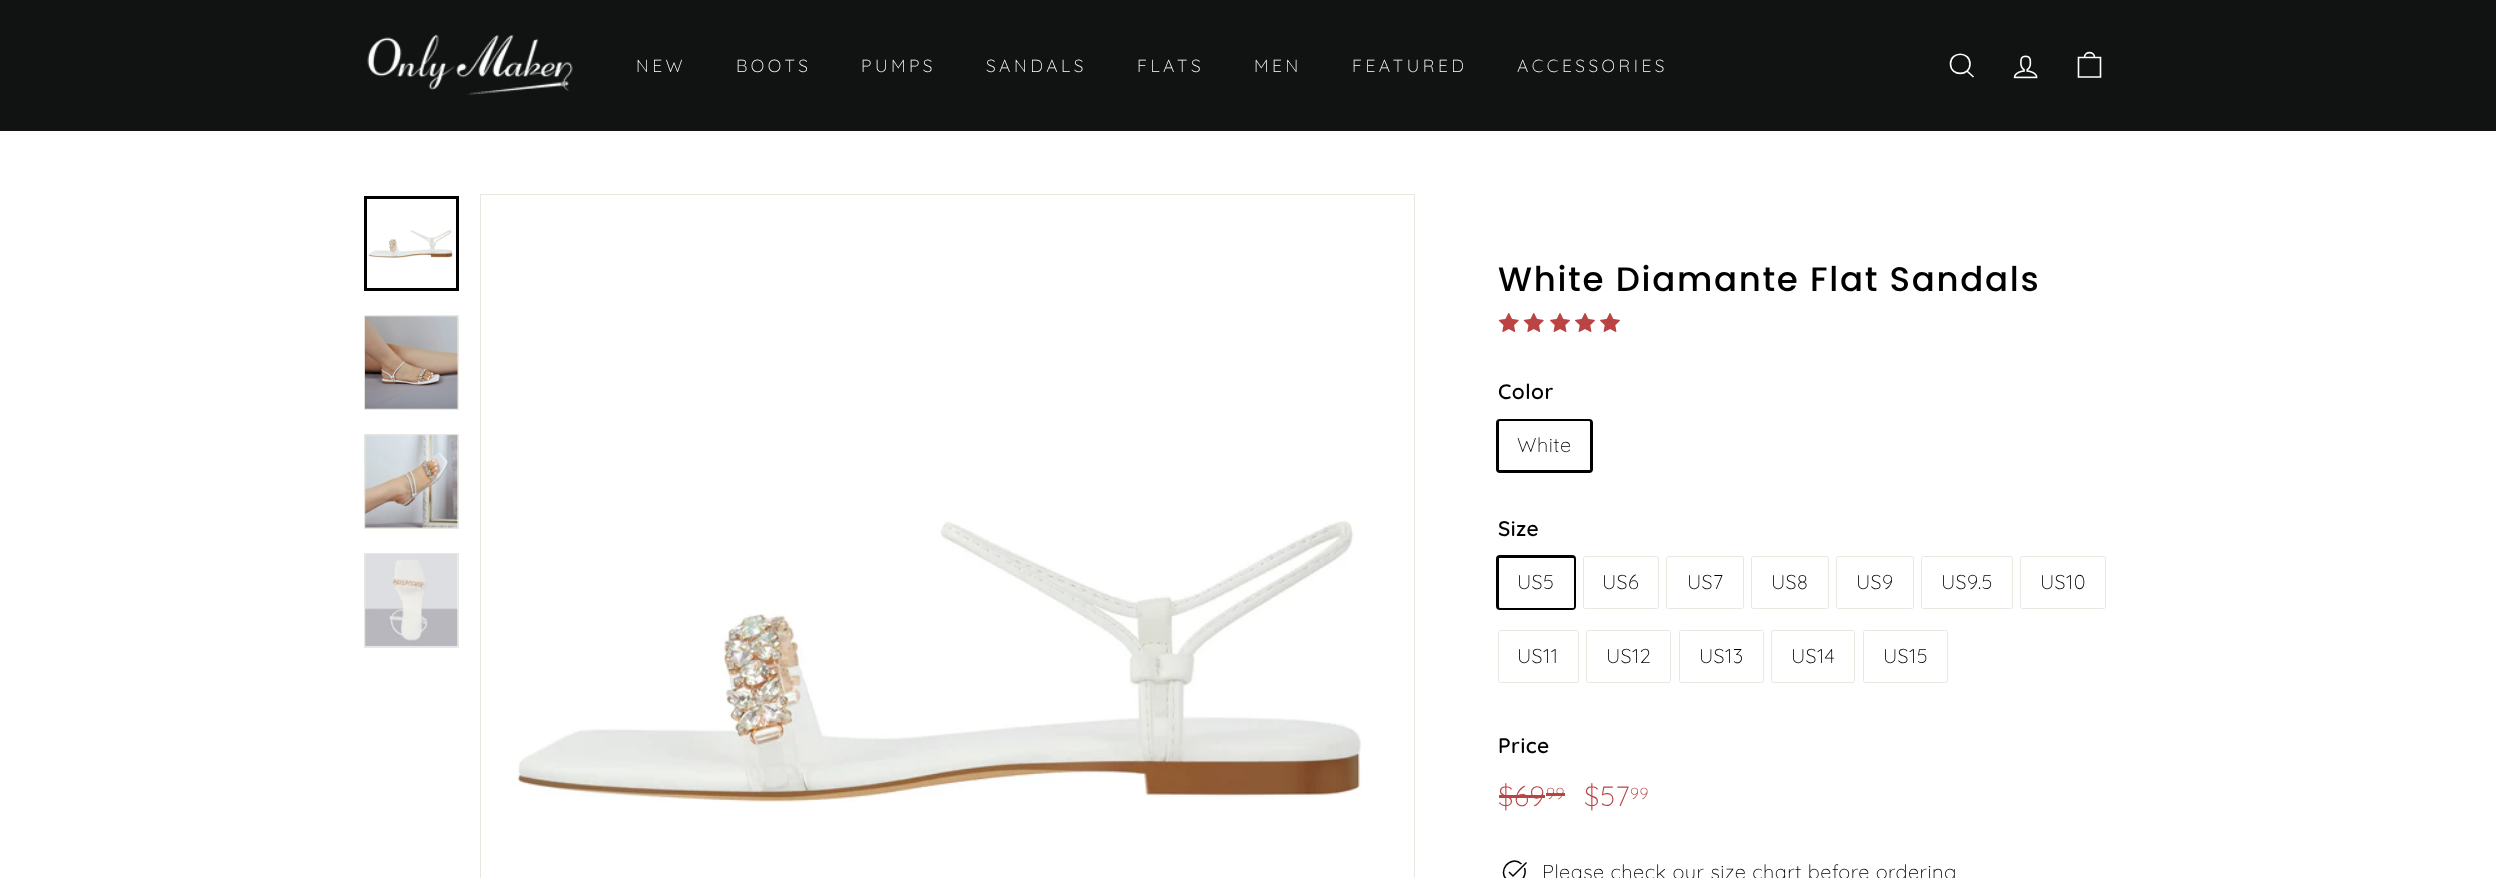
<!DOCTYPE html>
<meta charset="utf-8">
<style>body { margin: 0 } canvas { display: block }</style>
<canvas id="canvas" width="2496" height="878"></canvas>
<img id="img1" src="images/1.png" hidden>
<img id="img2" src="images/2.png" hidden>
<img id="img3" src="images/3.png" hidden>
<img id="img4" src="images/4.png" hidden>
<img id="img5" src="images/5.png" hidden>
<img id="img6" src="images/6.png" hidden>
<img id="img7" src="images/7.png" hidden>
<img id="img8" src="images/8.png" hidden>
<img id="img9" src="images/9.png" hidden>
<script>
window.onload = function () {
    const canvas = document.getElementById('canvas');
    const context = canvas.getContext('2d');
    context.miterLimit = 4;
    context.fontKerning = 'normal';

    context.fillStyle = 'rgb(255, 255, 255)';
    context.fillRect(0, 0, 2496, 878);
    context.fillStyle = 'rgb(17, 18, 18)';
    context.fillRect(0, 0, 2496, 131);
    context.drawImage(document.getElementById('img1'), 367, 34, 206, 61);
    context.beginPath();
    context.moveTo(1970, 64);
    context.bezierCurveTo(1970, 76.5, 1950.5, 76.5, 1950.5, 64);
    context.bezierCurveTo(1950.5, 51, 1970, 51, 1970, 64);
    context.closePath();
    context.moveTo(1973.5, 77);
    context.lineTo(1967, 71);
    context.strokeStyle = 'rgb(255, 255, 255)';
    context.lineWidth = 1.6;
    context.stroke();
    context.drawImage(document.getElementById('img2'), 2013, 55, 25, 24);
    context.beginPath();
    context.moveTo(2084.5, 57.5);
    context.bezierCurveTo(2084.5, 51, 2094.5, 51, 2094.5, 57.5);
    context.moveTo(2078.5, 57.5);
    context.lineTo(2100.5, 57.5);
    context.lineTo(2100.5, 77);
    context.lineTo(2078.5, 77);
    context.closePath();
    context.stroke();
    context.drawImage(document.getElementById('img3'), 368, 230, 85, 28);
    context.strokeStyle = 'rgb(0, 0, 0)';
    context.lineWidth = 3;
    context.strokeRect(365.5, 197.5, 92, 92);
    context.strokeStyle = 'rgb(232, 232, 225)';
    context.lineWidth = 1;
    context.strokeRect(364.5, 315.5, 94, 94);
    context.drawImage(document.getElementById('img4'), 364, 316, 94, 93);
    context.strokeRect(364.5, 434.5, 94, 94);
    context.drawImage(document.getElementById('img5'), 364, 434, 94, 94);
    context.strokeRect(364.5, 553.5, 94, 94);
    context.drawImage(document.getElementById('img6'), 365, 554, 93, 93);
    context.strokeRect(480.5, 194.5, 934, 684);
    context.drawImage(document.getElementById('img7'), 513, 521, 849, 281);
    context.drawImage(document.getElementById('img8'), 1498, 313, 21, 19);
    context.drawImage(document.getElementById('img8'), 1523, 313, 21, 19);
    context.drawImage(document.getElementById('img9'), 1550, 313, 20, 19);
    context.drawImage(document.getElementById('img9'), 1575, 313, 20, 19);
    context.drawImage(document.getElementById('img9'), 1600, 313, 20, 19);
    context.beginPath();
    context.roundRect(1497.5, 420.5, 94, 51, 2.5);
    context.strokeStyle = 'rgb(0, 0, 0)';
    context.lineWidth = 3;
    context.stroke();
    context.fillStyle = 'rgb(255, 255, 255)';
    context.beginPath();
    context.roundRect(1499, 421, 91, 49, 1);
    context.fill();
    context.beginPath();
    context.roundRect(1497.5, 556.5, 77, 52, 2.5);
    context.stroke();
    context.beginPath();
    context.roundRect(1499, 558, 75, 50, 1);
    context.fill();
    context.beginPath();
    context.roundRect(1583.5, 556.5, 75, 52, 2);
    context.strokeStyle = 'rgb(232, 232, 225)';
    context.lineWidth = 1;
    context.stroke();
    context.beginPath();
    context.roundRect(1584, 558, 74, 50, 1);
    context.fill();
    context.beginPath();
    context.roundRect(1666.5, 556.5, 77, 52, 2);
    context.stroke();
    context.beginPath();
    context.roundRect(1668, 558, 75, 50, 1);
    context.fill();
    context.beginPath();
    context.roundRect(1751.5, 556.5, 77, 52, 2);
    context.stroke();
    context.beginPath();
    context.roundRect(1753, 558, 75, 50, 1);
    context.fill();
    context.beginPath();
    context.roundRect(1836.5, 556.5, 77, 52, 2);
    context.stroke();
    context.beginPath();
    context.roundRect(1838, 558, 75, 50, 1);
    context.fill();
    context.beginPath();
    context.roundRect(1921.5, 556.5, 91, 52, 2);
    context.stroke();
    context.beginPath();
    context.roundRect(2020.5, 556.5, 85, 52, 2);
    context.stroke();
    context.beginPath();
    context.roundRect(2021, 558, 84, 50, 1);
    context.fill();
    context.beginPath();
    context.roundRect(1498.5, 630.5, 80, 52, 2);
    context.stroke();
    context.beginPath();
    context.roundRect(1499, 631, 79, 50, 1);
    context.fill();
    context.beginPath();
    context.roundRect(1586.5, 630.5, 84, 52, 2);
    context.stroke();
    context.beginPath();
    context.roundRect(1588, 631, 82, 50, 1);
    context.fill();
    context.beginPath();
    context.roundRect(1679.5, 630.5, 84, 52, 2);
    context.stroke();
    context.beginPath();
    context.roundRect(1680, 631, 83, 50, 1);
    context.fill();
    context.beginPath();
    context.roundRect(1771.5, 630.5, 83, 52, 2);
    context.stroke();
    context.beginPath();
    context.roundRect(1773, 631, 81, 50, 1);
    context.fill();
    context.beginPath();
    context.roundRect(1863.5, 630.5, 84, 52, 2);
    context.stroke();
    context.beginPath();
    context.roundRect(1864, 631, 82, 50, 1);
    context.fill();
    context.fillStyle = 'rgb(186, 68, 68)';
    context.fillRect(1499, 795, 46, 3);
    context.fillRect(1546, 793, 19, 3);
    context.beginPath();
    context.moveTo(1524.5, 868);
    context.bezierCurveTo(1526.5, 874, 1523.5, 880.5, 1517.5, 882);
    context.bezierCurveTo(1514.5, 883, 1511, 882.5, 1508, 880.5);
    context.bezierCurveTo(1496, 872, 1510.5, 854, 1521.5, 864);
    context.moveTo(1509, 872);
    context.lineTo(1513, 876);
    context.lineTo(1526.5, 862.5);
    context.strokeStyle = 'rgb(0, 0, 0)';
    context.lineWidth = 1.5;
    context.stroke();
    context.letterSpacing = '3.5px';
    context.font = '300 17.5px Quicksand';
    context.fillStyle = 'rgb(255, 255, 255)';
    context.fillText('NEW', 636, 72);
    context.fillText('BOOTS', 736, 72);
    context.fillText('PUMPS', 861, 72);
    context.fillText('SANDALS', 986, 72);
    context.fillText('FLATS', 1137, 72);
    context.fillText('MEN', 1254, 72);
    context.fillText('FEATURED', 1352, 72);
    context.fillText('ACCESSORIES', 1517, 72);
    context.letterSpacing = '1.7px';
    context.font = '500 34px Poppins';
    context.fillStyle = 'rgb(0, 0, 0)';
    context.fillText('White Diamante Flat Sandals', 1498, 291);
    context.letterSpacing = '0.5px';
    context.font = '600 21px Quicksand';
    context.fillText('Color', 1498, 399);
    context.font = '300 20px Quicksand';
    context.fillText('White', 1517, 452);
    context.font = '600 21px Quicksand';
    context.fillText('Size', 1498, 536);
    context.font = '300 20px Quicksand';
    context.fillText('US5', 1517, 589);
    context.fillText('US6', 1602, 589);
    context.fillText('US7', 1687, 589);
    context.fillText('US8', 1771, 589);
    context.fillText('US9', 1856, 589);
    context.fillText('US9.5', 1941, 589);
    context.fillText('US10', 2040, 589);
    context.fillText('US11', 1517, 663);
    context.fillText('US12', 1606, 663);
    context.fillText('US13', 1699, 663);
    context.fillText('US14', 1791, 663);
    context.fillText('US15', 1883, 663);
    context.font = '600 21px Quicksand';
    context.fillText('Price', 1498, 753);
    context.font = '300 28px Quicksand';
    context.fillStyle = 'rgb(186, 68, 68)';
    context.fillText('$69', 1498, 806);
    context.font = '300 16px Quicksand';
    context.fillText('99', 1546, 799);
    context.font = '300 28px Quicksand';
    context.fillText('$57', 1584, 806);
    context.font = '300 16px Quicksand';
    context.fillText('99', 1630, 799);
    context.font = '300 20px Quicksand';
    context.fillStyle = 'rgb(0, 0, 0)';
    context.fillText('Please check our size chart before ordering', 1542, 879);
};
</script>
